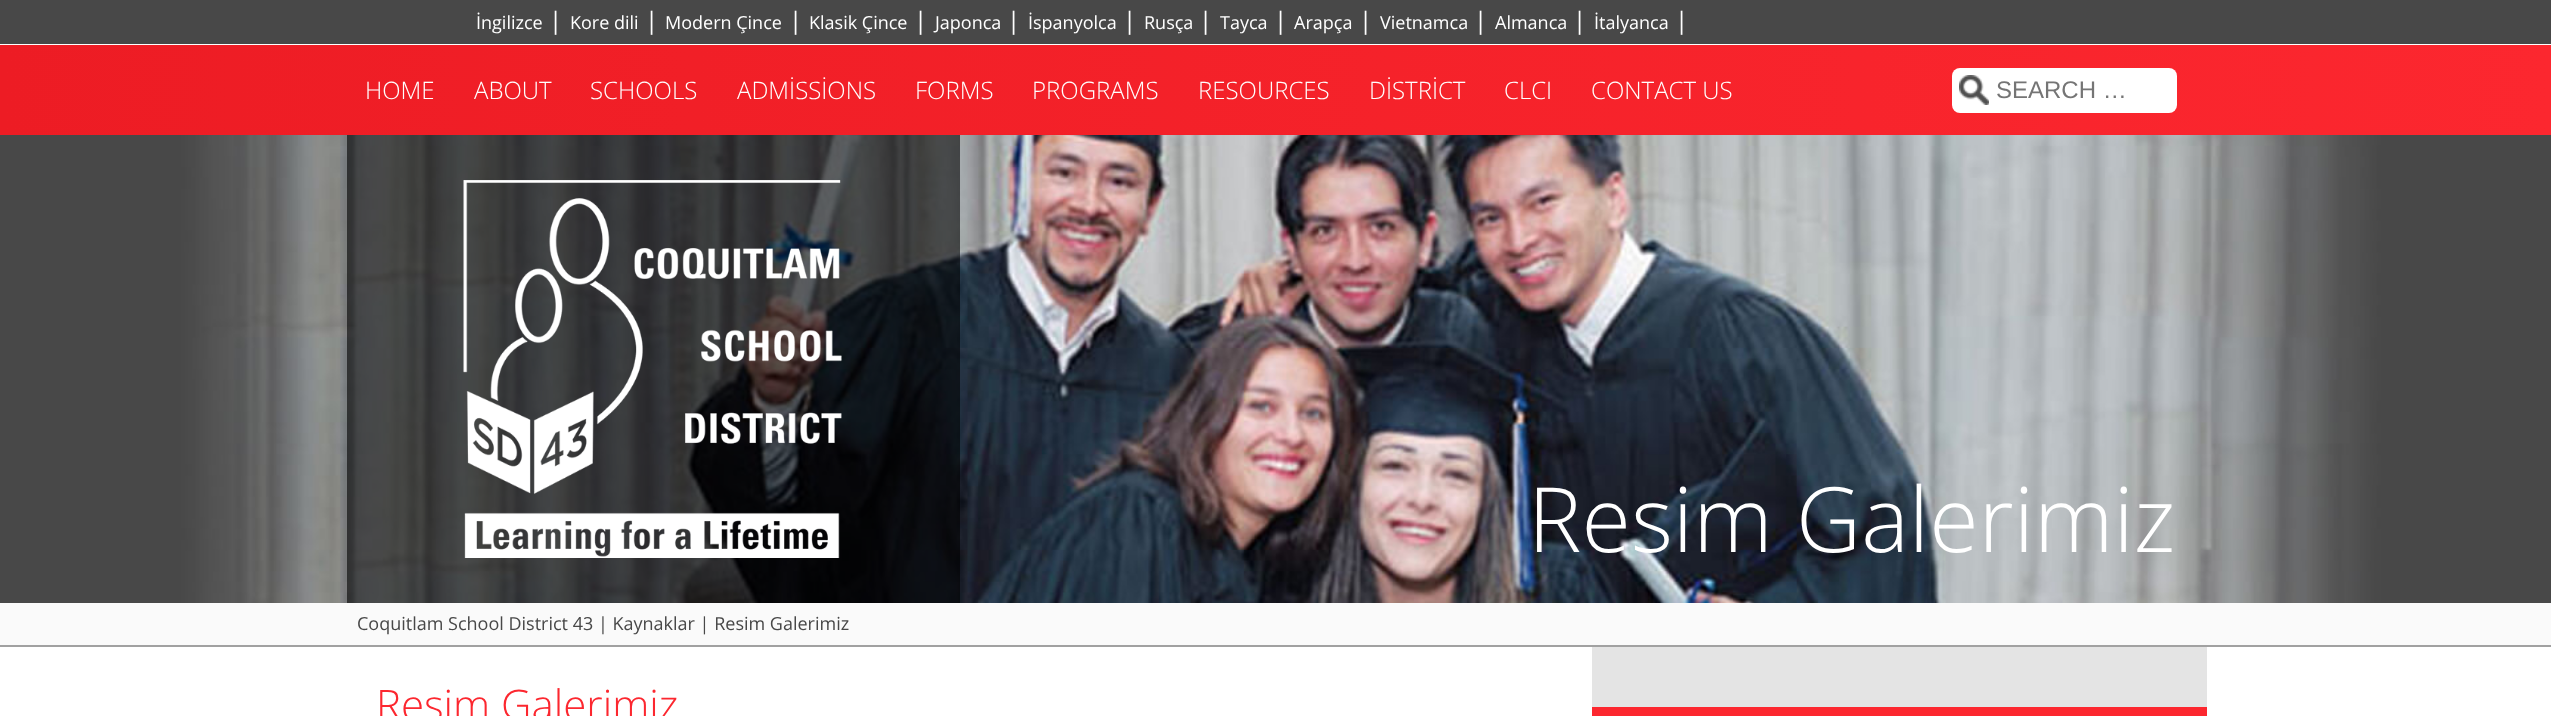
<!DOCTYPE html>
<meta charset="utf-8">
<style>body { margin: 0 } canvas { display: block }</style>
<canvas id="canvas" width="2551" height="716"></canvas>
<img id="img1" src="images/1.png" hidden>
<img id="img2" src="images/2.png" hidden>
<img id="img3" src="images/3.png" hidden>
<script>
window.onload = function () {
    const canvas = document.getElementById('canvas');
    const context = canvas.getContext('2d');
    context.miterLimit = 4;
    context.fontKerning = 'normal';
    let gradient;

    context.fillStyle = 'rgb(255, 255, 255)';
    context.fillRect(0, 0, 2551, 716);
    context.fillStyle = 'rgb(72, 72, 72)';
    context.fillRect(0, 0, 2551, 44);
    gradient = context.createLinearGradient(0, 90, 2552, 90);
    gradient.addColorStop(0, 'rgb(237, 28, 36)');
    gradient.addColorStop(1, 'rgb(252, 39, 47)');
    context.fillStyle = gradient;
    context.fillRect(0, 45, 2551, 90);
    context.fillStyle = 'rgb(255, 255, 255)';
    context.beginPath();
    context.roundRect(1952, 68, 225, 45, 8);
    context.fill();
    context.drawImage(document.getElementById('img1'), 1959, 75, 30, 30);
    context.drawImage(document.getElementById('img2'), 0, 135, 2551, 468);
    context.fillStyle = 'rgba(0, 0, 0, 0.6)';
    context.fillRect(347, 135, 613, 468);
    context.drawImage(document.getElementById('img3'), 463, 180, 379, 378);
    context.fillStyle = 'rgb(250, 250, 250)';
    context.fillRect(0, 603, 2551, 42);
    context.fillStyle = 'rgb(161, 161, 161)';
    context.fillRect(0, 645, 2551, 2);
    context.fillStyle = 'rgb(228, 228, 228)';
    context.fillRect(1592, 647, 615, 60);
    context.fillStyle = 'rgb(252, 39, 47)';
    context.fillRect(1592, 707, 615, 9);
    context.font = '18px Open Sans';
    context.fillStyle = 'rgb(255, 255, 255)';
    context.fillText('İngilizce', 476, 29);
    context.font = '24px Open Sans';
    context.fillText('|', 549, 29);
    context.font = '18px Open Sans';
    context.fillText('Kore dili', 570, 29);
    context.font = '24px Open Sans';
    context.fillText('|', 645, 29);
    context.font = '18px Open Sans';
    context.fillText('Modern Çince', 665, 29);
    context.font = '24px Open Sans';
    context.fillText('|', 789, 29);
    context.font = '18px Open Sans';
    context.fillText('Klasik Çince', 809, 29);
    context.font = '24px Open Sans';
    context.fillText('|', 914, 29);
    context.font = '18px Open Sans';
    context.fillText('Japonca', 935, 29);
    context.font = '24px Open Sans';
    context.fillText('|', 1007, 29);
    context.font = '18px Open Sans';
    context.fillText('İspanyolca', 1028, 29);
    context.font = '24px Open Sans';
    context.fillText('|', 1123, 29);
    context.font = '18px Open Sans';
    context.fillText('Rusça', 1144, 29);
    context.font = '24px Open Sans';
    context.fillText('|', 1199, 29);
    context.font = '18px Open Sans';
    context.fillText('Tayca', 1220, 29);
    context.font = '24px Open Sans';
    context.fillText('|', 1274, 29);
    context.font = '18px Open Sans';
    context.fillText('Arapça', 1294, 29);
    context.font = '24px Open Sans';
    context.fillText('|', 1359, 29);
    context.font = '18px Open Sans';
    context.fillText('Vietnamca', 1380, 29);
    context.font = '24px Open Sans';
    context.fillText('|', 1474, 29);
    context.font = '18px Open Sans';
    context.fillText('Almanca', 1495, 29);
    context.font = '24px Open Sans';
    context.fillText('|', 1573, 29);
    context.font = '18px Open Sans';
    context.fillText('İtalyanca', 1594, 29);
    context.font = '24px Open Sans';
    context.fillText('|', 1675, 29);
    context.font = '300 24px Open Sans';
    context.fillText('HOME', 365, 99);
    context.fillText('ABOUT', 474, 99);
    context.fillText('SCHOOLS', 590, 99);
    context.fillText('ADMİSSİONS', 737, 99);
    context.fillText('FORMS', 915, 99);
    context.fillText('PROGRAMS', 1032, 99);
    context.fillText('RESOURCES', 1198, 99);
    context.fillText('DİSTRİCT', 1369, 99);
    context.fillText('CLCI', 1504, 99);
    context.fillText('CONTACT US', 1591, 99);
    context.font = '24px Liberation Sans';
    context.fillStyle = 'rgb(117, 117, 117)';
    context.fillText('SEARCH …', 1996, 98);
    context.font = '300 90px Open Sans';
    context.fillStyle = 'rgb(255, 255, 255)';
    context.fillText('Resim Galerimiz', 1528, 552);
    context.font = '18px Open Sans';
    context.fillStyle = 'rgb(72, 72, 72)';
    context.fillText('Coquitlam School District 43 | Kaynaklar | Resim Galerimiz', 357, 630);
    context.font = '300 42px Open Sans';
    context.fillStyle = 'rgb(252, 39, 47)';
    context.fillText('Resim Galerimiz', 376, 720);
};
</script>
